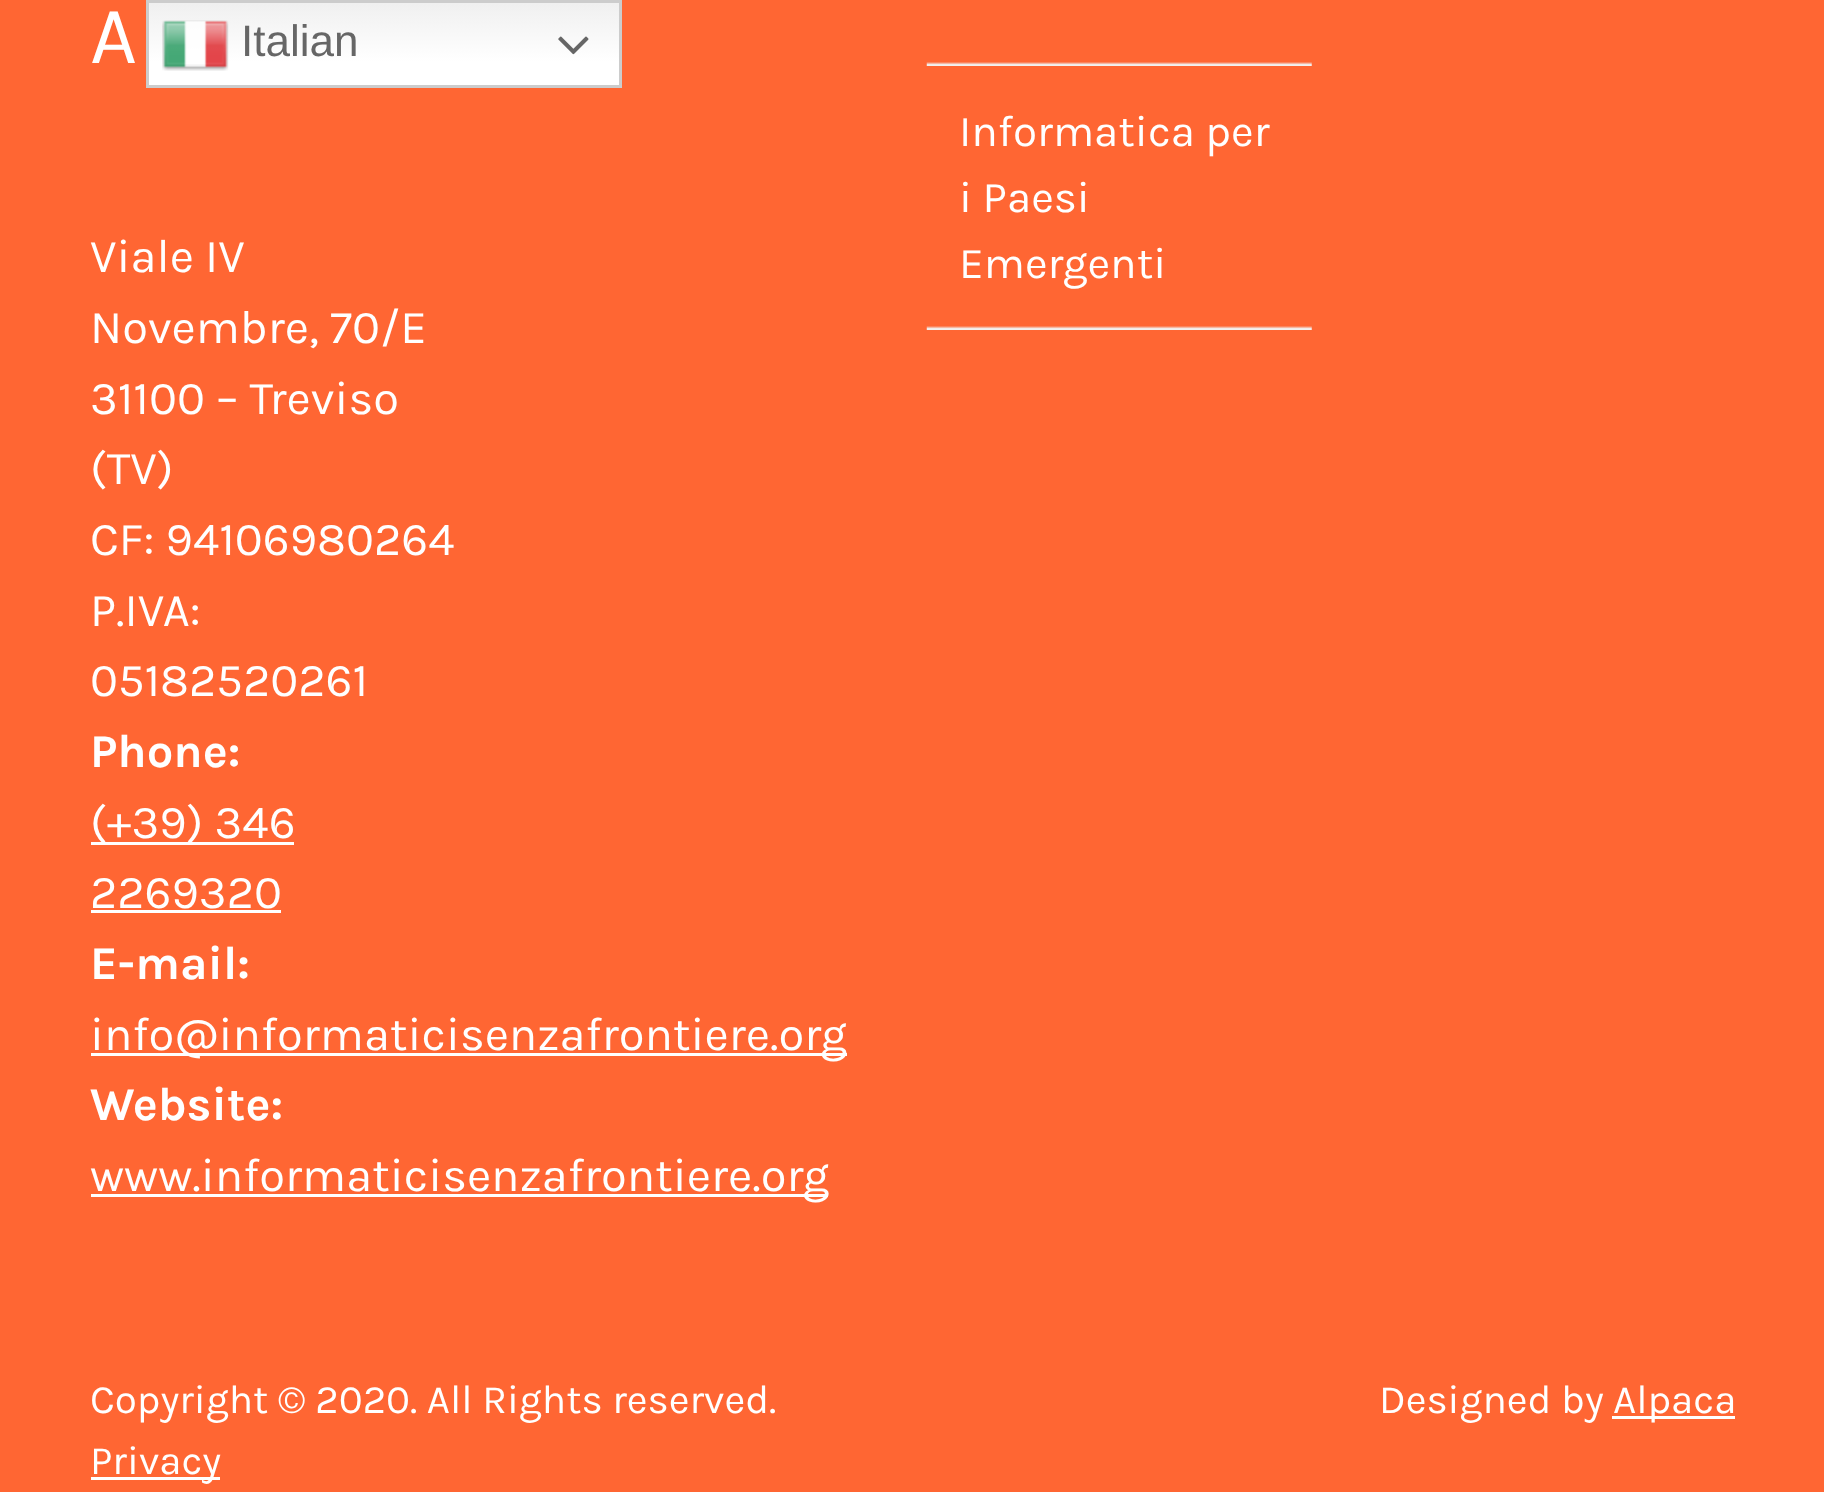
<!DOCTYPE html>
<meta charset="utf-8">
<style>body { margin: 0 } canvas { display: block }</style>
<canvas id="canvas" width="1824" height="1492"></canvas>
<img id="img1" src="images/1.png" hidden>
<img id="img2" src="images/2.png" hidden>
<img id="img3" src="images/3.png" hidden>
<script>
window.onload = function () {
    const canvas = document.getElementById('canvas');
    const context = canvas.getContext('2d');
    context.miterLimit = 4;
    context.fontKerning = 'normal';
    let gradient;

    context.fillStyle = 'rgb(255, 102, 51)';
    context.fillRect(0, 0, 1824, 1492);
    context.fillStyle = 'rgb(255, 255, 255)';
    context.fillRect(91, 842, 203, 3);
    context.fillRect(91, 910, 190, 3);
    context.fillRect(91, 1053, 756, 3);
    context.fillRect(91, 1194, 737, 3);
    context.drawImage(document.getElementById('img1'), 926, 62, 386, 4);
    context.drawImage(document.getElementById('img1'), 926, 326, 386, 4);
    context.fillRect(91, 1477, 129, 3);
    context.fillRect(1612, 1416, 123, 3);
    gradient = context.createLinearGradient(384, 0, 384, 88);
    gradient.addColorStop(0, 'rgb(239, 239, 239)');
    gradient.addColorStop(0.7, 'rgb(255, 255, 255)');
    context.fillStyle = gradient;
    context.fillRect(149, 3, 470, 82);
    context.strokeStyle = 'rgb(204, 204, 204)';
    context.lineWidth = 3;
    context.strokeRect(147.5, 1.5, 473, 85);
    context.drawImage(document.getElementById('img2'), 162, 20, 67, 51);
    context.drawImage(document.getElementById('img3'), 558, 36, 31, 19);
    context.font = '82px Karla';
    context.fillStyle = 'rgb(255, 255, 255)';
    context.fillText('A', 90, 63);
    context.font = '47.1px Karla';
    context.fillText('Viale IV', 90, 272);
    context.fillText('Novembre, 70/E', 90, 343);
    context.fillText('31100 – Treviso', 90, 414);
    context.fillText('(TV)', 90, 484);
    context.fillText('CF: 94106980264', 90, 555);
    context.fillText('P.IVA:', 90, 626);
    context.fillText('05182520261', 90, 696);
    context.font = 'bold 47.1px Karla';
    context.fillText('Phone:', 90, 767);
    context.font = '47.1px Karla';
    context.fillText('(+39) 346', 90, 838);
    context.fillText('2269320', 90, 908);
    context.font = 'bold 47.1px Karla';
    context.fillText('E-mail:', 90, 979);
    context.font = '47.1px Karla';
    context.fillText('info@informaticisenzafrontiere.org', 90, 1050);
    context.font = 'bold 47.1px Karla';
    context.fillText('Website:', 90, 1120);
    context.font = '47.1px Karla';
    context.fillText('www.informaticisenzafrontiere.org', 90, 1191);
    context.font = '44px Karla';
    context.fillText('Informatica per', 959, 146);
    context.fillText('i Paesi', 959, 212);
    context.fillText('Emergenti', 959, 278);
    context.font = '40.4px Karla';
    context.fillText('Copyright © 2020. All Rights reserved.', 90, 1413);
    context.fillText('Privacy', 90, 1474);
    context.fillText('Designed by', 1379, 1413);
    context.fillText('Alpaca', 1613, 1413);
    context.font = '44px Liberation Sans';
    context.fillStyle = 'rgb(102, 102, 102)';
    context.fillText('Italian', 241, 56);
};
</script>
